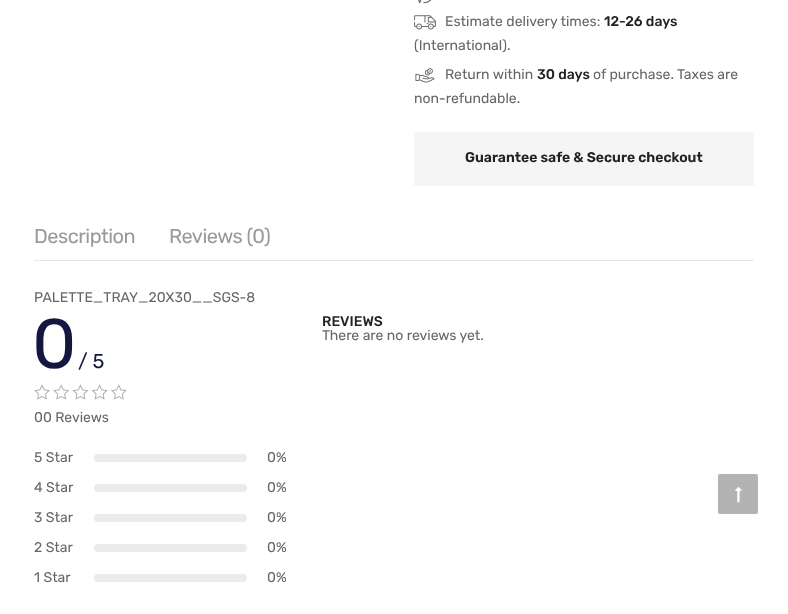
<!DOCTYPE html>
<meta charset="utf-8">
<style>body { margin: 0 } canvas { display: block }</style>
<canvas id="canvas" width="788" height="614"></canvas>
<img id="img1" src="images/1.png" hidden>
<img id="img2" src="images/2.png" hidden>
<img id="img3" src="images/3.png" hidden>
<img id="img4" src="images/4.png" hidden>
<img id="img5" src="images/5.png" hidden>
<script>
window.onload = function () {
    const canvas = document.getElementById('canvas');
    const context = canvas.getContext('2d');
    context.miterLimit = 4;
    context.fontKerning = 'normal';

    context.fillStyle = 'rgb(255, 255, 255)';
    context.fillRect(0, 0, 788, 614);
    context.drawImage(document.getElementById('img1'), 418, 0, 14, 4);
    context.drawImage(document.getElementById('img2'), 414, 15, 22, 15);
    context.drawImage(document.getElementById('img3'), 415, 68, 20, 15);
    context.fillStyle = 'rgb(245, 245, 245)';
    context.beginPath();
    context.roundRect(414, 132, 340, 54, 2);
    context.fill();
    context.fillStyle = 'rgb(229, 229, 229)';
    context.fillRect(34, 260, 720, 1);
    context.drawImage(document.getElementById('img4'), 34, 384, 93, 16);
    context.fillStyle = 'rgb(235, 235, 235)';
    context.beginPath();
    context.roundRect(94, 454, 153, 8, 4);
    context.fill();
    context.beginPath();
    context.roundRect(94, 484, 153, 8, 4);
    context.fill();
    context.beginPath();
    context.roundRect(94, 514, 153, 8, 4);
    context.fill();
    context.beginPath();
    context.roundRect(94, 544, 153, 8, 4);
    context.fill();
    context.beginPath();
    context.roundRect(94, 574, 153, 8, 4);
    context.fill();
    context.fillStyle = 'rgb(179, 179, 179)';
    context.beginPath();
    context.roundRect(718, 474, 40, 40, 2);
    context.fill();
    context.drawImage(document.getElementById('img5'), 735, 487, 7, 16);
    context.font = '14px Rubik';
    context.fillStyle = 'rgb(102, 102, 102)';
    context.fillText('Estimate delivery times:', 445, 26);
    context.font = '500 14px Rubik';
    context.fillStyle = 'rgb(34, 34, 34)';
    context.fillText('12-26 days', 604, 26);
    context.font = '14px Rubik';
    context.fillStyle = 'rgb(102, 102, 102)';
    context.fillText('(International).', 414, 50);
    context.fillText('Return within', 445, 79);
    context.font = '500 14px Rubik';
    context.fillStyle = 'rgb(34, 34, 34)';
    context.fillText('30 days', 537, 79);
    context.font = '14px Rubik';
    context.fillStyle = 'rgb(102, 102, 102)';
    context.fillText('of purchase. Taxes are', 593, 79);
    context.fillText('non-refundable.', 414, 103);
    context.font = '600 14px Rubik';
    context.fillStyle = 'rgb(34, 34, 34)';
    context.fillText('Guarantee safe & Secure checkout', 465, 162);
    context.letterSpacing = '-0.5px';
    context.font = '20px Rubik';
    context.fillStyle = 'rgb(153, 153, 153)';
    context.fillText('Description', 34, 243);
    context.fillText('Reviews (0)', 169, 243);
    context.letterSpacing = '0px';
    context.font = '14px Rubik';
    context.fillStyle = 'rgb(102, 102, 102)';
    context.fillText('PALETTE_TRAY_20X30__SGS-8', 34, 302);
    context.letterSpacing = '-2px';
    context.font = '70px Rubik';
    context.fillStyle = 'rgb(20, 23, 62)';
    context.fillText('0', 32, 368);
    context.letterSpacing = '0px';
    context.font = '20px Rubik';
    context.fillText('/ 5', 78, 368);
    context.font = '14px Rubik';
    context.fillStyle = 'rgb(102, 102, 102)';
    context.fillText('00 Reviews', 34, 422);
    context.fillText('5 Star', 34, 462);
    context.fillText('0%', 267, 462);
    context.fillText('4 Star', 34, 492);
    context.fillText('0%', 267, 492);
    context.fillText('3 Star', 34, 522);
    context.fillText('0%', 267, 522);
    context.fillText('2 Star', 34, 552);
    context.fillText('0%', 267, 552);
    context.fillText('1 Star', 34, 582);
    context.fillText('0%', 267, 582);
    context.font = '500 14px Rubik';
    context.fillStyle = 'rgb(34, 34, 34)';
    context.fillText('REVIEWS', 322, 326);
    context.font = '14px Rubik';
    context.fillStyle = 'rgb(102, 102, 102)';
    context.fillText('There are no reviews yet.', 322, 340);
};
</script>
